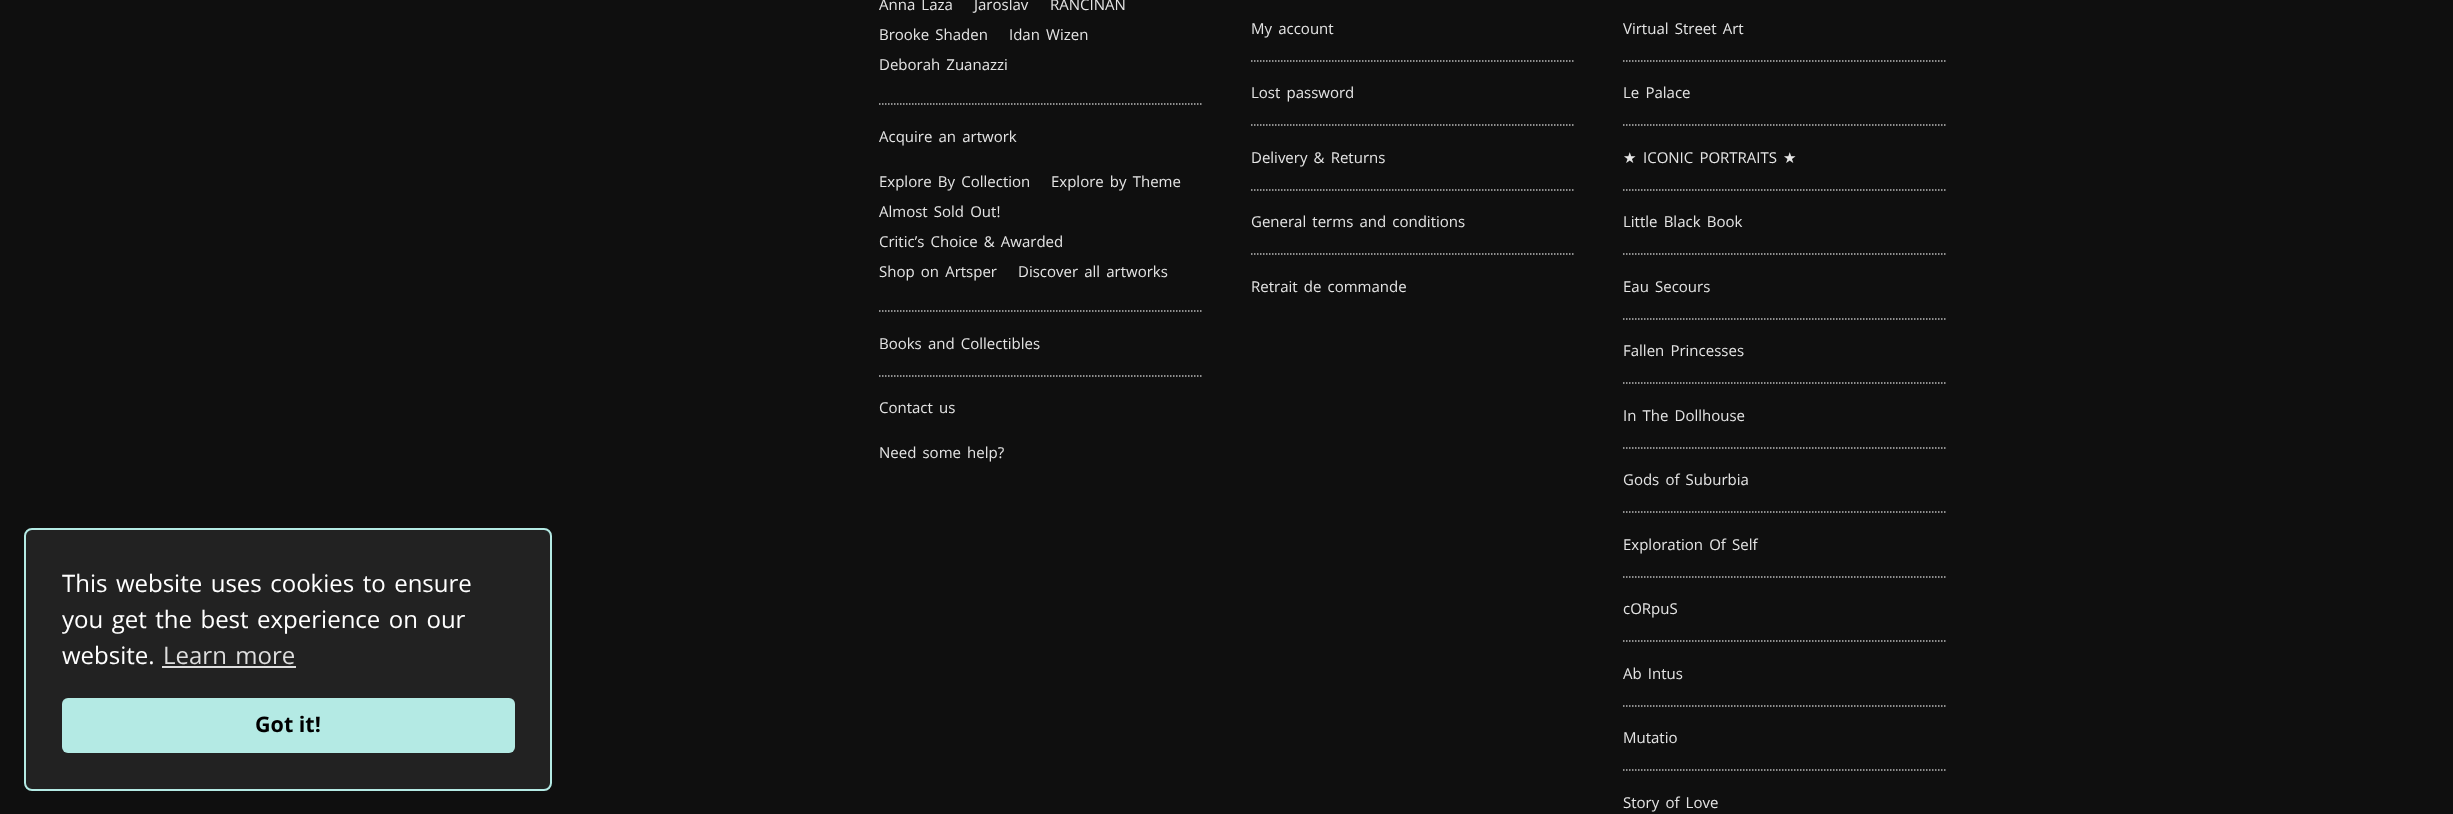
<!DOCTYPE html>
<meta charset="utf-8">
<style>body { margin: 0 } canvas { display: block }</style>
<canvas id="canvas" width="2453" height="814"></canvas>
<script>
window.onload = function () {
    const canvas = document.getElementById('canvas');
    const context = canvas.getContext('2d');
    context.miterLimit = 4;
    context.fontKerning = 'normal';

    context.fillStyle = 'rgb(15, 15, 15)';
    context.fillRect(0, 0, 2453, 814);
    context.fillStyle = 'rgb(34, 34, 34)';
    context.beginPath();
    context.roundRect(25, 529, 526, 261, 7);
    context.fill();
    context.strokeStyle = 'rgb(180, 234, 228)';
    context.lineWidth = 2;
    context.stroke();
    context.fillStyle = 'rgb(222, 222, 222)';
    context.fillRect(162, 666, 134, 2);
    context.fillStyle = 'rgb(180, 234, 228)';
    context.beginPath();
    context.roundRect(62, 698, 453, 55, 6);
    context.fill();
    context.beginPath();
    context.moveTo(879, 104);
    context.lineTo(1203, 104);
    context.strokeStyle = 'rgb(186, 186, 186)';
    context.lineWidth = 1.5;
    context.setLineDash([1.5, 1.5]);
    context.stroke();
    context.beginPath();
    context.moveTo(879, 311);
    context.lineTo(1203, 311);
    context.stroke();
    context.beginPath();
    context.moveTo(879, 376);
    context.lineTo(1203, 376);
    context.stroke();
    context.beginPath();
    context.moveTo(1251, 61);
    context.lineTo(1575, 61);
    context.stroke();
    context.beginPath();
    context.moveTo(1251, 125);
    context.lineTo(1575, 125);
    context.stroke();
    context.beginPath();
    context.moveTo(1251, 190);
    context.lineTo(1575, 190);
    context.stroke();
    context.beginPath();
    context.moveTo(1251, 254);
    context.lineTo(1575, 254);
    context.stroke();
    context.beginPath();
    context.moveTo(1623, 61);
    context.lineTo(1947, 61);
    context.stroke();
    context.beginPath();
    context.moveTo(1623, 125);
    context.lineTo(1947, 125);
    context.stroke();
    context.beginPath();
    context.moveTo(1623, 190);
    context.lineTo(1947, 190);
    context.stroke();
    context.beginPath();
    context.moveTo(1623, 254);
    context.lineTo(1947, 254);
    context.stroke();
    context.beginPath();
    context.moveTo(1623, 319);
    context.lineTo(1947, 319);
    context.stroke();
    context.beginPath();
    context.moveTo(1623, 383);
    context.lineTo(1947, 383);
    context.stroke();
    context.beginPath();
    context.moveTo(1623, 448);
    context.lineTo(1947, 448);
    context.stroke();
    context.beginPath();
    context.moveTo(1623, 512);
    context.lineTo(1947, 512);
    context.stroke();
    context.beginPath();
    context.moveTo(1623, 577);
    context.lineTo(1947, 577);
    context.stroke();
    context.beginPath();
    context.moveTo(1623, 641);
    context.lineTo(1947, 641);
    context.stroke();
    context.beginPath();
    context.moveTo(1623, 706);
    context.lineTo(1947, 706);
    context.stroke();
    context.beginPath();
    context.moveTo(1623, 770);
    context.lineTo(1947, 770);
    context.stroke();
    context.wordSpacing = '2.25px';
    context.font = '24px Open Sans';
    context.fillStyle = 'rgb(255, 255, 255)';
    context.fillText('This website uses cookies to ensure', 62, 592);
    context.fillText('you get the best experience on our', 62, 628);
    context.wordSpacing = '0px';
    context.fillText('website.', 62, 664);
    context.wordSpacing = '2.25px';
    context.fillStyle = 'rgb(222, 222, 222)';
    context.fillText('Learn more', 163, 664);
    context.wordSpacing = '0px';
    context.font = 'bold 21.5px Open Sans';
    context.fillStyle = 'rgb(0, 0, 0)';
    context.fillText('Got it!', 255, 732);
    context.wordSpacing = '2.25px';
    context.font = '15px Open Sans';
    context.fillStyle = 'rgb(229, 229, 229)';
    context.fillText('Anna Laza', 879, 10);
    context.wordSpacing = '0px';
    context.fillText('Jaroslav', 974, 10);
    context.fillText('RANCINAN', 1050, 10);
    context.wordSpacing = '2.25px';
    context.fillText('Brooke Shaden', 879, 40);
    context.fillText('Idan Wizen', 1009, 40);
    context.fillText('Deborah Zuanazzi', 879, 70);
    context.fillText('Acquire an artwork', 879, 142);
    context.fillText('Explore By Collection', 879, 187);
    context.fillText('Explore by Theme', 1051, 187);
    context.fillText('Almost Sold Out!', 879, 217);
    context.fillText('Critic’s Choice & Awarded', 879, 247);
    context.fillText('Shop on Artsper', 879, 277);
    context.fillText('Discover all artworks', 1018, 277);
    context.fillText('Books and Collectibles', 879, 349);
    context.fillText('Contact us', 879, 413);
    context.fillText('Need some help?', 879, 458);
    context.fillText('My account', 1251, 34);
    context.fillText('Lost password', 1251, 98);
    context.fillText('Delivery & Returns', 1251, 163);
    context.fillText('General terms and conditions', 1251, 227);
    context.fillText('Retrait de commande', 1251, 292);
    context.fillText('Virtual Street Art', 1623, 34);
    context.fillText('Le Palace', 1623, 98);
    context.wordSpacing = '0px';
    context.font = '15px DejaVu Sans';
    context.fillText('★', 1623, 163);
    context.wordSpacing = '2.25px';
    context.font = '15px Open Sans';
    context.fillText('ICONIC PORTRAITS', 1643, 163);
    context.wordSpacing = '0px';
    context.font = '15px DejaVu Sans';
    context.fillText('★', 1783, 163);
    context.wordSpacing = '2.25px';
    context.font = '15px Open Sans';
    context.fillText('Little Black Book', 1623, 227);
    context.fillText('Eau Secours', 1623, 292);
    context.fillText('Fallen Princesses', 1623, 356);
    context.fillText('In The Dollhouse', 1623, 421);
    context.fillText('Gods of Suburbia', 1623, 485);
    context.fillText('Exploration Of Self', 1623, 550);
    context.wordSpacing = '0px';
    context.fillText('cORpuS', 1623, 614);
    context.wordSpacing = '2.25px';
    context.fillText('Ab Intus', 1623, 679);
    context.wordSpacing = '0px';
    context.fillText('Mutatio', 1623, 743);
    context.wordSpacing = '2.25px';
    context.fillText('Story of Love', 1623, 808);
};
</script>
